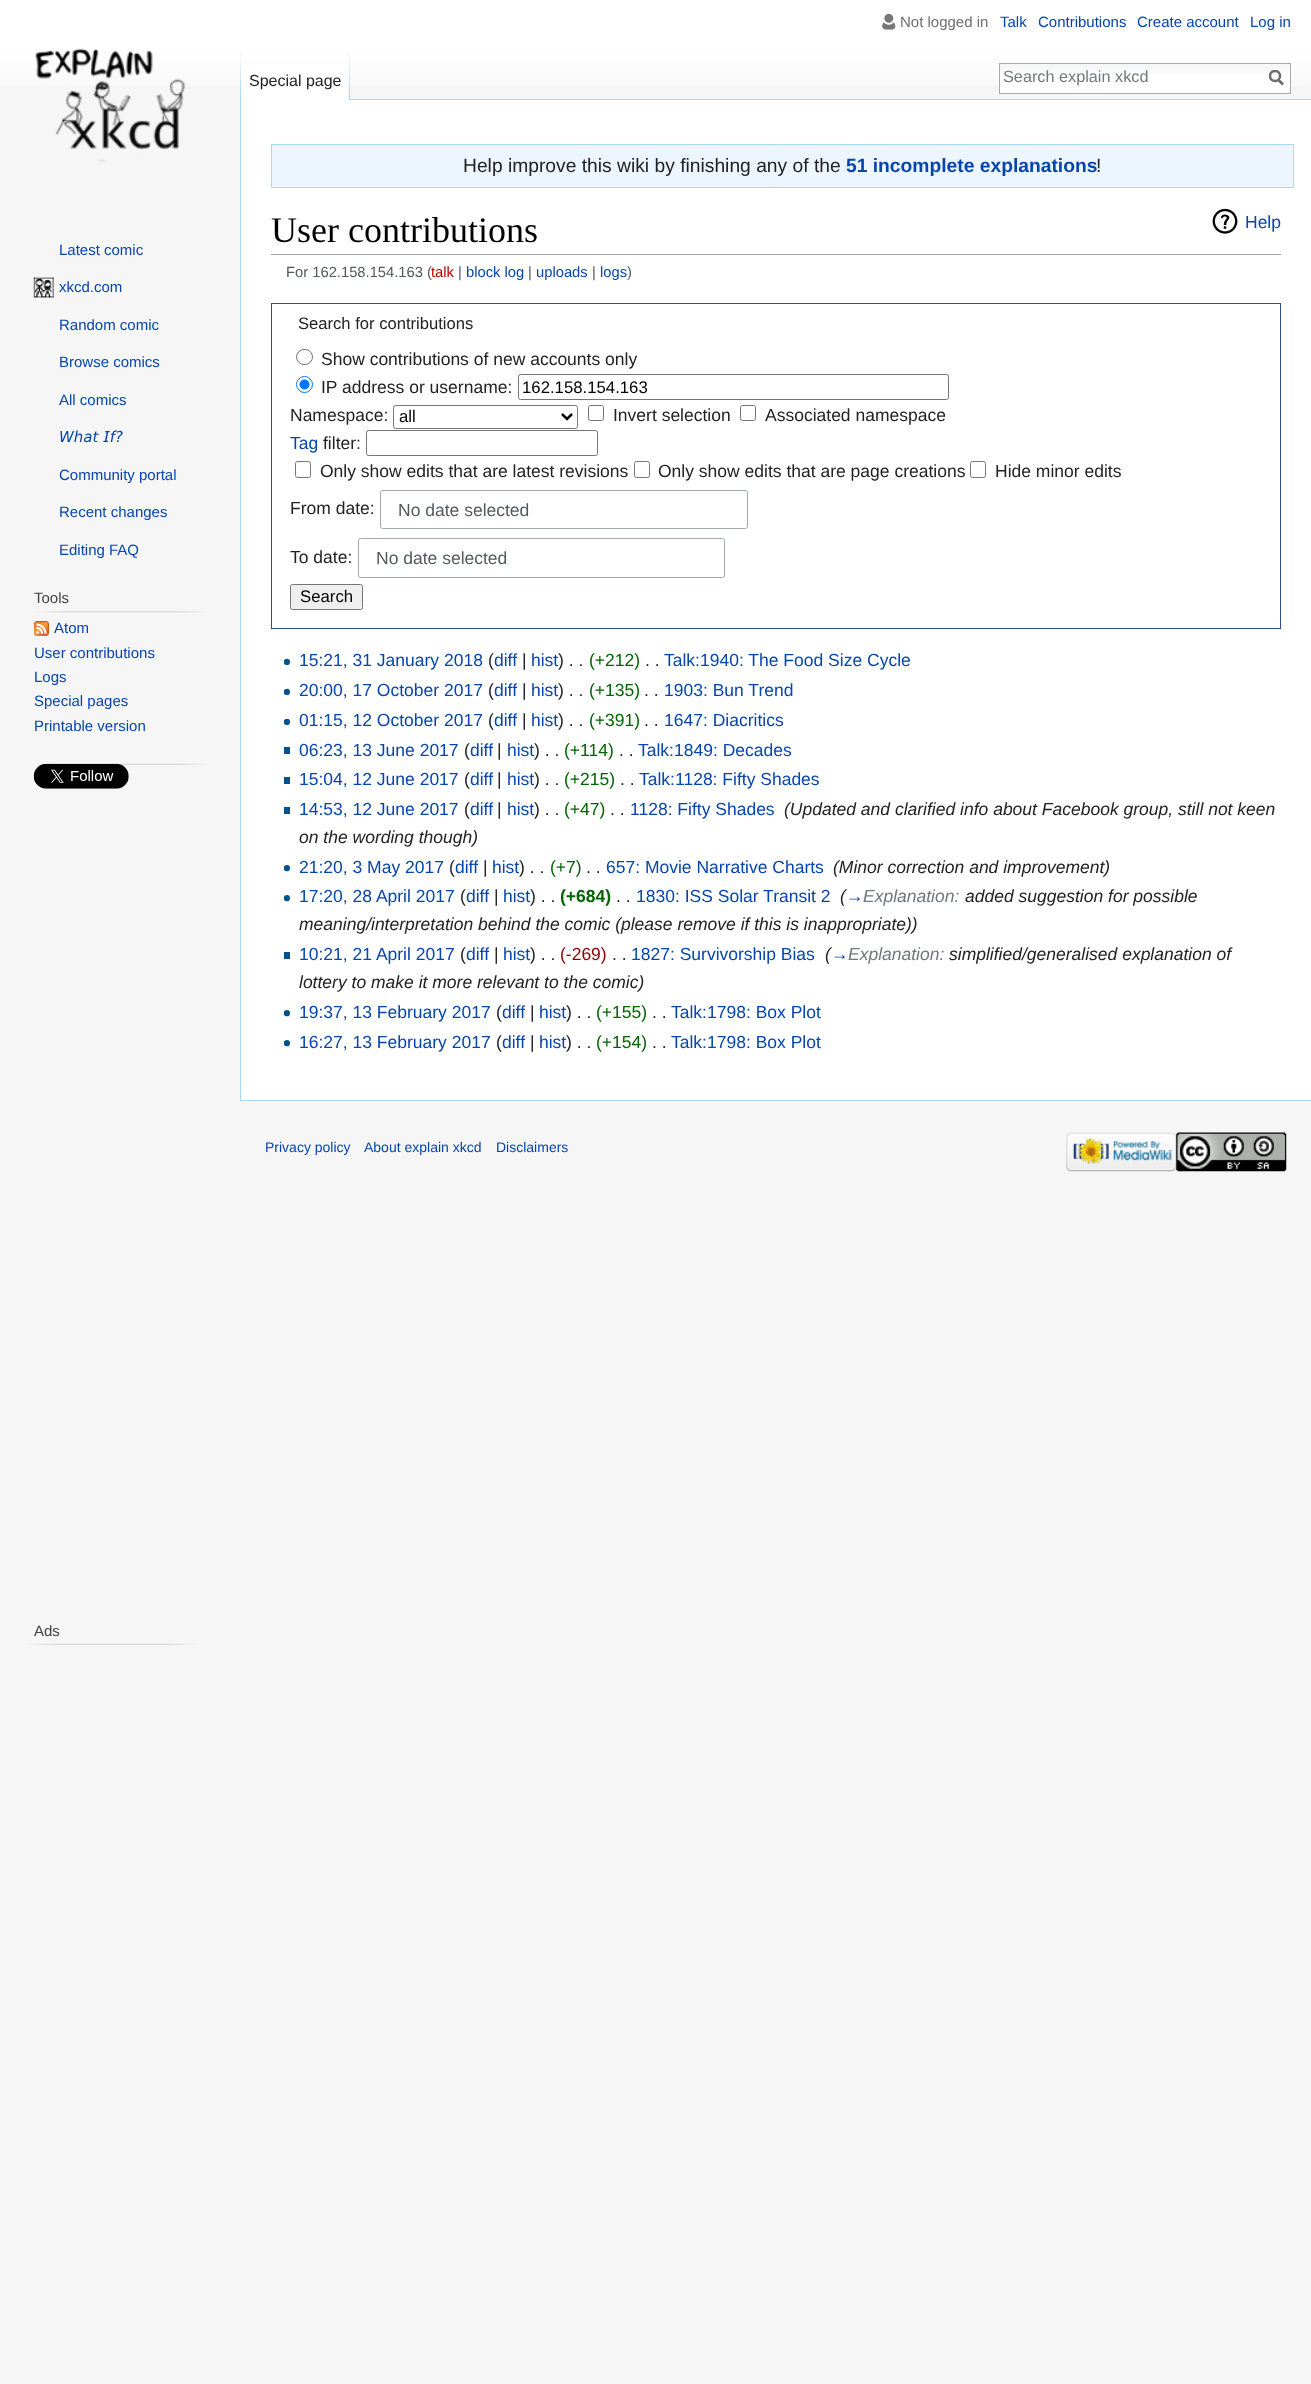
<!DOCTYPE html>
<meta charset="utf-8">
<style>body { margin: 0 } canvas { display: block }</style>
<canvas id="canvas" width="1311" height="2384"></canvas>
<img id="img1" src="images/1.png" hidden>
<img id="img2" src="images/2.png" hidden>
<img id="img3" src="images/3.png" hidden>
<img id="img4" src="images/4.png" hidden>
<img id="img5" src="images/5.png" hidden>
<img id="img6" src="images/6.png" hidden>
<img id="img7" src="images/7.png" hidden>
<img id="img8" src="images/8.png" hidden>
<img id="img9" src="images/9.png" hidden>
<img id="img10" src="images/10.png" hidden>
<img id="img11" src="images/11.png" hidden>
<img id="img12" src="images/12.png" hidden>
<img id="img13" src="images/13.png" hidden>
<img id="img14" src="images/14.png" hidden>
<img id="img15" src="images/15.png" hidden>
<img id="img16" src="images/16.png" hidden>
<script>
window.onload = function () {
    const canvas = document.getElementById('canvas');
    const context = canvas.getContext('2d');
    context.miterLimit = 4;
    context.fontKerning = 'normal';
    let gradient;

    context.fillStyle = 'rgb(246, 246, 246)';
    context.fillRect(0, 0, 1311, 2384);
    gradient = context.createLinearGradient(656, 0, 656, 100);
    gradient.addColorStop(0.5, 'rgb(255, 255, 255)');
    gradient.addColorStop(1, 'rgb(246, 246, 246)');
    context.fillStyle = gradient;
    context.fillRect(0, 0, 1311, 86);
    context.drawImage(document.getElementById('img1'), 882, 14, 14, 16);
    context.drawImage(document.getElementById('img2'), 240, 50, 1, 49);
    context.fillStyle = 'rgb(255, 255, 255)';
    context.fillRect(241, 64, 108, 36);
    context.drawImage(document.getElementById('img3'), 348, 50, 2, 50);
    context.fillRect(1000, 74, 290, 19);
    context.drawImage(document.getElementById('img4'), 1000, 64, 290, 10);
    context.strokeStyle = 'rgb(170, 170, 170)';
    context.strokeRect(999.5, 63.5, 291, 30);
    context.beginPath();
    context.moveTo(1283, 84.5);
    context.lineTo(1278, 79.5);
    context.strokeStyle = 'rgb(108, 108, 108)';
    context.lineWidth = 2.5;
    context.stroke();
    context.save();
    context.beginPath();
    context.rect(1269, 70, 15, 16);
    context.clip();
    context.beginPath();
    context.arc(1275, 76, 5, 0, 2 * Math.PI);
    context.stroke();
    context.restore();
    context.drawImage(document.getElementById('img5'), 35, 48, 151, 114);
    context.drawImage(document.getElementById('img6'), 33, 277, 21, 21);
    context.drawImage(document.getElementById('img7'), 37, 611, 170, 2);
    context.drawImage(document.getElementById('img8'), 34, 621, 15, 15);
    context.drawImage(document.getElementById('img9'), 37, 763, 170, 2);
    context.drawImage(document.getElementById('img10'), 33, 763, 96, 26);
    context.drawImage(document.getElementById('img11'), 27, 1643, 170, 2);
    context.fillRect(241, 100, 1070, 1000);
    context.fillStyle = 'rgb(167, 215, 249)';
    context.fillRect(350, 99, 961, 1);
    context.fillRect(240, 1100, 1071, 1);
    context.fillRect(240, 99, 1, 1002);
    context.fillStyle = 'rgb(237, 246, 255)';
    context.beginPath();
    context.rect(271.5, 144.5, 1022, 43);
    context.fill();
    context.strokeStyle = 'rgb(167, 215, 249)';
    context.lineWidth = 1;
    context.stroke();
    context.fillStyle = 'rgb(162, 169, 177)';
    context.fillRect(271, 254, 1010, 1);
    context.drawImage(document.getElementById('img12'), 1212, 208, 26, 26);
    context.strokeStyle = 'rgb(42, 75, 141)';
    context.strokeRect(271.5, 303.5, 1009, 325);
    context.beginPath();
    context.roundRect(296.5, 349.5, 16, 15, 7.5);
    context.strokeStyle = 'rgb(118, 118, 118)';
    context.stroke();
    context.beginPath();
    context.arc(304.5, 384.5, 8, 0, 2 * Math.PI);
    context.strokeStyle = 'rgb(0, 117, 255)';
    context.stroke();
    context.fillStyle = 'rgb(0, 117, 255)';
    context.beginPath();
    context.arc(304.5, 384.5, 5, 0, 2 * Math.PI);
    context.fill();
    context.beginPath();
    context.roundRect(518.5, 374.5, 430, 25, 2);
    context.strokeStyle = 'rgb(118, 118, 118)';
    context.stroke();
    context.beginPath();
    context.roundRect(393.5, 405.5, 184, 23, 2);
    context.stroke();
    context.beginPath();
    context.moveTo(562, 414);
    context.lineTo(567, 419);
    context.lineTo(572, 414);
    context.strokeStyle = 'rgb(0, 0, 0)';
    context.lineWidth = 2.5;
    context.stroke();
    context.beginPath();
    context.roundRect(588.5, 405.5, 15, 15, 2);
    context.strokeStyle = 'rgb(118, 118, 118)';
    context.lineWidth = 1;
    context.stroke();
    context.beginPath();
    context.roundRect(740.5, 405.5, 15, 15, 2);
    context.stroke();
    context.beginPath();
    context.roundRect(366.5, 430.5, 231, 25, 2);
    context.stroke();
    context.beginPath();
    context.roundRect(295.5, 461.5, 15, 16, 2);
    context.stroke();
    context.beginPath();
    context.roundRect(634.5, 461.5, 15, 16, 2);
    context.stroke();
    context.beginPath();
    context.roundRect(970.5, 461.5, 15, 16, 2);
    context.stroke();
    context.beginPath();
    context.roundRect(380.5, 490.5, 367, 38, 2);
    context.strokeStyle = 'rgb(162, 169, 177)';
    context.stroke();
    context.beginPath();
    context.roundRect(358.5, 538.5, 366, 39, 2);
    context.stroke();
    context.fillStyle = 'rgb(239, 239, 239)';
    context.beginPath();
    context.roundRect(290.5, 584.5, 72, 25, 2);
    context.fill();
    context.strokeStyle = 'rgb(118, 118, 118)';
    context.stroke();
    context.drawImage(document.getElementById('img13'), 284, 658, 6, 7);
    context.drawImage(document.getElementById('img13'), 284, 688, 6, 7);
    context.drawImage(document.getElementById('img13'), 284, 718, 6, 7);
    context.fillStyle = 'rgb(0, 82, 140)';
    context.fillRect(284, 747, 6, 7);
    context.fillRect(284, 777, 6, 7);
    context.fillRect(284, 807, 6, 7);
    context.drawImage(document.getElementById('img14'), 284, 865, 6, 7);
    context.drawImage(document.getElementById('img14'), 284, 895, 6, 7);
    context.fillRect(284, 952, 6, 7);
    context.drawImage(document.getElementById('img14'), 284, 1010, 6, 7);
    context.drawImage(document.getElementById('img14'), 284, 1040, 6, 7);
    context.drawImage(document.getElementById('img15'), 1066, 1132, 111, 40);
    context.drawImage(document.getElementById('img16'), 1176, 1132, 111, 40);
    context.font = '15px Liberation Sans';
    context.fillStyle = 'rgb(112, 112, 112)';
    context.fillText('Not logged in', 900, 27);
    context.fillStyle = 'rgb(6, 69, 173)';
    context.fillText('Talk', 1000, 27);
    context.fillText('Contributions', 1038, 27);
    context.fillText('Create account', 1137, 27);
    context.fillText('Log in', 1250, 27);
    context.font = '16px Liberation Sans';
    context.fillStyle = 'rgb(34, 34, 34)';
    context.fillText('Special page', 249, 86);
    context.font = '16.25px Liberation Sans';
    context.fillStyle = 'rgb(114, 119, 125)';
    context.fillText('Search explain xkcd', 1003, 82);
    context.font = '15px Liberation Sans';
    context.fillStyle = 'rgb(6, 69, 173)';
    context.fillText('Latest comic', 59, 255);
    context.fillText('xkcd.com', 59, 292);
    context.fillText('Random comic', 59, 330);
    context.fillText('Browse comics', 59, 367);
    context.fillText('All comics', 59, 405);
    context.font = 'italic 15px DejaVu Sans';
    context.fillText('𝘞𝘩𝘢𝘵 𝘐𝘧?', 59, 442);
    context.font = '15px Liberation Sans';
    context.fillText('Community portal', 59, 480);
    context.fillText('Recent changes', 59, 517);
    context.fillText('Editing FAQ', 59, 555);
    context.fillStyle = 'rgb(68, 68, 68)';
    context.fillText('Tools', 34, 603);
    context.fillStyle = 'rgb(6, 69, 173)';
    context.fillText('Atom', 54, 633);
    context.fillText('User contributions', 34, 658);
    context.fillText('Logs', 34, 682);
    context.fillText('Special pages', 34, 706);
    context.fillText('Printable version', 34, 731);
    context.fillStyle = 'rgb(68, 68, 68)';
    context.fillText('Ads', 34, 1636);
    context.font = '19.25px Liberation Sans';
    context.fillStyle = 'rgb(34, 34, 34)';
    context.fillText('Help improve this wiki by finishing any of the', 463, 172);
    context.font = 'bold 19.25px Liberation Sans';
    context.fillStyle = 'rgb(6, 69, 173)';
    context.fillText('51 incomplete explanations', 846, 172);
    context.font = '19.25px Liberation Sans';
    context.fillStyle = 'rgb(34, 34, 34)';
    context.fillText('!', 1096, 172);
    context.font = '36px Liberation Serif';
    context.fillStyle = 'rgb(0, 0, 0)';
    context.fillText('User contributions', 271, 242);
    context.font = '17.5px Liberation Sans';
    context.fillStyle = 'rgb(6, 69, 173)';
    context.fillText('Help', 1245, 228);
    context.font = '14.75px Liberation Sans';
    context.fillStyle = 'rgb(84, 89, 93)';
    context.fillText('For 162.158.154.163 (', 286, 277);
    context.fillStyle = 'rgb(186, 0, 0)';
    context.fillText('talk', 431, 277);
    context.fillStyle = 'rgb(84, 89, 93)';
    context.fillText('|', 458, 277);
    context.fillStyle = 'rgb(6, 69, 173)';
    context.fillText('block log', 466, 277);
    context.fillStyle = 'rgb(84, 89, 93)';
    context.fillText('|', 528, 277);
    context.fillStyle = 'rgb(6, 69, 173)';
    context.fillText('uploads', 536, 277);
    context.fillStyle = 'rgb(84, 89, 93)';
    context.fillText('|', 592, 277);
    context.fillStyle = 'rgb(6, 69, 173)';
    context.fillText('logs', 600, 277);
    context.fillStyle = 'rgb(84, 89, 93)';
    context.fillText(')', 627, 277);
    context.font = '16.6px Liberation Sans';
    context.fillStyle = 'rgb(34, 34, 34)';
    context.fillText('Search for contributions', 298, 329);
    context.font = '17.5px Liberation Sans';
    context.fillText('Show contributions of new accounts only', 321, 365);
    context.fillText('IP address or username:', 321, 393);
    context.font = '16.75px Liberation Sans';
    context.fillStyle = 'rgb(0, 0, 0)';
    context.fillText('162.158.154.163', 522, 393);
    context.font = '17.5px Liberation Sans';
    context.fillStyle = 'rgb(34, 34, 34)';
    context.fillText('Namespace:', 290, 421);
    context.font = '16.75px Liberation Sans';
    context.fillStyle = 'rgb(0, 0, 0)';
    context.fillText('all', 399, 422);
    context.font = '17.5px Liberation Sans';
    context.fillStyle = 'rgb(34, 34, 34)';
    context.fillText('Invert selection', 613, 421);
    context.fillText('Associated namespace', 765, 421);
    context.fillStyle = 'rgb(6, 69, 173)';
    context.fillText('Tag', 290, 449);
    context.fillStyle = 'rgb(34, 34, 34)';
    context.fillText('filter:', 323, 449);
    context.fillText('Only show edits that are latest revisions', 320, 477);
    context.fillText('Only show edits that are page creations', 658, 477);
    context.fillText('Hide minor edits', 995, 477);
    context.fillText('From date:', 290, 514);
    context.fillStyle = 'rgb(84, 89, 93)';
    context.fillText('No date selected', 398, 516);
    context.fillStyle = 'rgb(34, 34, 34)';
    context.fillText('To date:', 290, 563);
    context.fillStyle = 'rgb(84, 89, 93)';
    context.fillText('No date selected', 376, 564);
    context.font = '16.75px Liberation Sans';
    context.fillStyle = 'rgb(0, 0, 0)';
    context.fillText('Search', 300, 602);
    context.font = '17.5px Liberation Sans';
    context.fillStyle = 'rgb(6, 69, 173)';
    context.fillText('15:21, 31 January 2018', 299, 666);
    context.fillStyle = 'rgb(34, 34, 34)';
    context.fillText('(', 488, 666);
    context.fillStyle = 'rgb(6, 69, 173)';
    context.fillText('diff', 494, 666);
    context.fillStyle = 'rgb(34, 34, 34)';
    context.fillText('|', 522, 666);
    context.fillStyle = 'rgb(6, 69, 173)';
    context.fillText('hist', 531, 666);
    context.fillStyle = 'rgb(34, 34, 34)';
    context.fillText(') . .', 558, 666);
    context.fillStyle = 'rgb(0, 100, 0)';
    context.fillText('(+212)', 589, 666);
    context.fillStyle = 'rgb(34, 34, 34)';
    context.fillText('. .', 645, 666);
    context.fillStyle = 'rgb(6, 69, 173)';
    context.fillText('Talk:1940: The Food Size Cycle', 664, 666);
    context.fillText('20:00, 17 October 2017', 299, 696);
    context.fillStyle = 'rgb(34, 34, 34)';
    context.fillText('(', 488, 696);
    context.fillStyle = 'rgb(6, 69, 173)';
    context.fillText('diff', 494, 696);
    context.fillStyle = 'rgb(34, 34, 34)';
    context.fillText('|', 522, 696);
    context.fillStyle = 'rgb(6, 69, 173)';
    context.fillText('hist', 531, 696);
    context.fillStyle = 'rgb(34, 34, 34)';
    context.fillText(') . .', 558, 696);
    context.fillStyle = 'rgb(0, 100, 0)';
    context.fillText('(+135)', 589, 696);
    context.fillStyle = 'rgb(34, 34, 34)';
    context.fillText('. .', 644, 696);
    context.fillStyle = 'rgb(6, 69, 173)';
    context.fillText('1903: Bun Trend', 664, 696);
    context.fillText('01:15, 12 October 2017', 299, 726);
    context.fillStyle = 'rgb(34, 34, 34)';
    context.fillText('(', 488, 726);
    context.fillStyle = 'rgb(6, 69, 173)';
    context.fillText('diff', 494, 726);
    context.fillStyle = 'rgb(34, 34, 34)';
    context.fillText('|', 522, 726);
    context.fillStyle = 'rgb(6, 69, 173)';
    context.fillText('hist', 531, 726);
    context.fillStyle = 'rgb(34, 34, 34)';
    context.fillText(') . .', 558, 726);
    context.fillStyle = 'rgb(0, 100, 0)';
    context.fillText('(+391)', 589, 726);
    context.fillStyle = 'rgb(34, 34, 34)';
    context.fillText('. .', 644, 726);
    context.fillStyle = 'rgb(6, 69, 173)';
    context.fillText('1647: Diacritics', 664, 726);
    context.fillText('06:23, 13 June 2017', 299, 756);
    context.fillStyle = 'rgb(34, 34, 34)';
    context.fillText('(', 464, 756);
    context.fillStyle = 'rgb(6, 69, 173)';
    context.fillText('diff', 470, 756);
    context.fillStyle = 'rgb(34, 34, 34)';
    context.fillText('|', 497, 756);
    context.fillStyle = 'rgb(6, 69, 173)';
    context.fillText('hist', 507, 756);
    context.fillStyle = 'rgb(34, 34, 34)';
    context.fillText(') . .', 534, 756);
    context.fillStyle = 'rgb(0, 100, 0)';
    context.fillText('(+114)', 564, 756);
    context.fillStyle = 'rgb(34, 34, 34)';
    context.fillText('. .', 619, 756);
    context.fillStyle = 'rgb(6, 69, 173)';
    context.fillText('Talk:1849: Decades', 638, 756);
    context.fillText('15:04, 12 June 2017', 299, 785);
    context.fillStyle = 'rgb(34, 34, 34)';
    context.fillText('(', 464, 785);
    context.fillStyle = 'rgb(6, 69, 173)';
    context.fillText('diff', 470, 785);
    context.fillStyle = 'rgb(34, 34, 34)';
    context.fillText('|', 497, 785);
    context.fillStyle = 'rgb(6, 69, 173)';
    context.fillText('hist', 507, 785);
    context.fillStyle = 'rgb(34, 34, 34)';
    context.fillText(') . .', 534, 785);
    context.fillStyle = 'rgb(0, 100, 0)';
    context.fillText('(+215)', 564, 785);
    context.fillStyle = 'rgb(34, 34, 34)';
    context.fillText('. .', 620, 785);
    context.fillStyle = 'rgb(6, 69, 173)';
    context.fillText('Talk:1128: Fifty Shades', 639, 785);
    context.fillText('14:53, 12 June 2017', 299, 815);
    context.fillStyle = 'rgb(34, 34, 34)';
    context.fillText('(', 464, 815);
    context.fillStyle = 'rgb(6, 69, 173)';
    context.fillText('diff', 470, 815);
    context.fillStyle = 'rgb(34, 34, 34)';
    context.fillText('|', 497, 815);
    context.fillStyle = 'rgb(6, 69, 173)';
    context.fillText('hist', 507, 815);
    context.fillStyle = 'rgb(34, 34, 34)';
    context.fillText(') . .', 534, 815);
    context.fillStyle = 'rgb(0, 100, 0)';
    context.fillText('(+47)', 564, 815);
    context.fillStyle = 'rgb(34, 34, 34)';
    context.fillText('. .', 610, 815);
    context.fillStyle = 'rgb(6, 69, 173)';
    context.fillText('1128: Fifty Shades', 630, 815);
    context.font = 'italic 17.5px Liberation Sans';
    context.fillStyle = 'rgb(34, 34, 34)';
    context.fillText('(Updated and clarified info about Facebook group, still not keen', 784, 815);
    context.fillText('on the wording though)', 299, 843);
    context.font = '17.5px Liberation Sans';
    context.fillStyle = 'rgb(6, 69, 173)';
    context.fillText('21:20, 3 May 2017', 299, 873);
    context.fillStyle = 'rgb(34, 34, 34)';
    context.fillText('(', 449, 873);
    context.fillStyle = 'rgb(6, 69, 173)';
    context.fillText('diff', 455, 873);
    context.fillStyle = 'rgb(34, 34, 34)';
    context.fillText('|', 483, 873);
    context.fillStyle = 'rgb(6, 69, 173)';
    context.fillText('hist', 492, 873);
    context.fillStyle = 'rgb(34, 34, 34)';
    context.fillText(') . .', 519, 873);
    context.fillStyle = 'rgb(0, 100, 0)';
    context.fillText('(+7)', 550, 873);
    context.fillStyle = 'rgb(34, 34, 34)';
    context.fillText('. .', 586, 873);
    context.fillStyle = 'rgb(6, 69, 173)';
    context.fillText('657: Movie Narrative Charts', 606, 873);
    context.font = 'italic 17.5px Liberation Sans';
    context.fillStyle = 'rgb(34, 34, 34)';
    context.fillText('(Minor correction and improvement)', 833, 873);
    context.font = '17.5px Liberation Sans';
    context.fillStyle = 'rgb(6, 69, 173)';
    context.fillText('17:20, 28 April 2017', 299, 902);
    context.fillStyle = 'rgb(34, 34, 34)';
    context.fillText('(', 460, 902);
    context.fillStyle = 'rgb(6, 69, 173)';
    context.fillText('diff', 466, 902);
    context.fillStyle = 'rgb(34, 34, 34)';
    context.fillText('|', 494, 902);
    context.fillStyle = 'rgb(6, 69, 173)';
    context.fillText('hist', 503, 902);
    context.fillStyle = 'rgb(34, 34, 34)';
    context.fillText(') . .', 530, 902);
    context.font = 'bold 17.5px Liberation Sans';
    context.fillStyle = 'rgb(0, 100, 0)';
    context.fillText('(+684)', 560, 902);
    context.font = '17.5px Liberation Sans';
    context.fillStyle = 'rgb(34, 34, 34)';
    context.fillText('. .', 616, 902);
    context.fillStyle = 'rgb(6, 69, 173)';
    context.fillText('1830: ISS Solar Transit 2', 636, 902);
    context.font = 'italic 17.5px Liberation Sans';
    context.fillStyle = 'rgb(34, 34, 34)';
    context.fillText('(', 840, 902);
    context.fillStyle = 'rgb(6, 69, 173)';
    context.fillText('→', 846, 902);
    context.fillStyle = 'rgb(114, 119, 125)';
    context.fillText('Explanation:', 863, 902);
    context.fillStyle = 'rgb(34, 34, 34)';
    context.fillText('added suggestion for possible', 965, 902);
    context.fillText('meaning/interpretation behind the comic (please remove if this is inappropriate))', 299, 930);
    context.font = '17.5px Liberation Sans';
    context.fillStyle = 'rgb(6, 69, 173)';
    context.fillText('10:21, 21 April 2017', 299, 960);
    context.fillStyle = 'rgb(34, 34, 34)';
    context.fillText('(', 460, 960);
    context.fillStyle = 'rgb(6, 69, 173)';
    context.fillText('diff', 466, 960);
    context.fillStyle = 'rgb(34, 34, 34)';
    context.fillText('|', 494, 960);
    context.fillStyle = 'rgb(6, 69, 173)';
    context.fillText('hist', 503, 960);
    context.fillStyle = 'rgb(34, 34, 34)';
    context.fillText(') . .', 530, 960);
    context.fillStyle = 'rgb(139, 0, 0)';
    context.fillText('(-269)', 560, 960);
    context.fillStyle = 'rgb(34, 34, 34)';
    context.fillText('. .', 612, 960);
    context.fillStyle = 'rgb(6, 69, 173)';
    context.fillText('1827: Survivorship Bias', 631, 960);
    context.font = 'italic 17.5px Liberation Sans';
    context.fillStyle = 'rgb(34, 34, 34)';
    context.fillText('(', 825, 960);
    context.fillStyle = 'rgb(6, 69, 173)';
    context.fillText('→', 831, 960);
    context.fillStyle = 'rgb(114, 119, 125)';
    context.fillText('Explanation:', 848, 960);
    context.fillStyle = 'rgb(34, 34, 34)';
    context.fillText('simplified/generalised explanation of', 949, 960);
    context.fillText('lottery to make it more relevant to the comic)', 299, 988);
    context.font = '17.5px Liberation Sans';
    context.fillStyle = 'rgb(6, 69, 173)';
    context.fillText('19:37, 13 February 2017', 299, 1018);
    context.fillStyle = 'rgb(34, 34, 34)';
    context.fillText('(', 496, 1018);
    context.fillStyle = 'rgb(6, 69, 173)';
    context.fillText('diff', 502, 1018);
    context.fillStyle = 'rgb(34, 34, 34)';
    context.fillText('|', 530, 1018);
    context.fillStyle = 'rgb(6, 69, 173)';
    context.fillText('hist', 539, 1018);
    context.fillStyle = 'rgb(34, 34, 34)';
    context.fillText(') . .', 566, 1018);
    context.fillStyle = 'rgb(0, 100, 0)';
    context.fillText('(+155)', 596, 1018);
    context.fillStyle = 'rgb(34, 34, 34)';
    context.fillText('. .', 652, 1018);
    context.fillStyle = 'rgb(6, 69, 173)';
    context.fillText('Talk:1798: Box Plot', 671, 1018);
    context.fillText('16:27, 13 February 2017', 299, 1048);
    context.fillStyle = 'rgb(34, 34, 34)';
    context.fillText('(', 496, 1048);
    context.fillStyle = 'rgb(6, 69, 173)';
    context.fillText('diff', 502, 1048);
    context.fillStyle = 'rgb(34, 34, 34)';
    context.fillText('|', 530, 1048);
    context.fillStyle = 'rgb(6, 69, 173)';
    context.fillText('hist', 539, 1048);
    context.fillStyle = 'rgb(34, 34, 34)';
    context.fillText(') . .', 566, 1048);
    context.fillStyle = 'rgb(0, 100, 0)';
    context.fillText('(+154)', 596, 1048);
    context.fillStyle = 'rgb(34, 34, 34)';
    context.fillText('. .', 652, 1048);
    context.fillStyle = 'rgb(6, 69, 173)';
    context.fillText('Talk:1798: Box Plot', 671, 1048);
    context.font = '14px Liberation Sans';
    context.fillText('Privacy policy', 265, 1152);
    context.fillText('About explain xkcd', 364, 1152);
    context.fillText('Disclaimers', 496, 1152);
};
</script>
